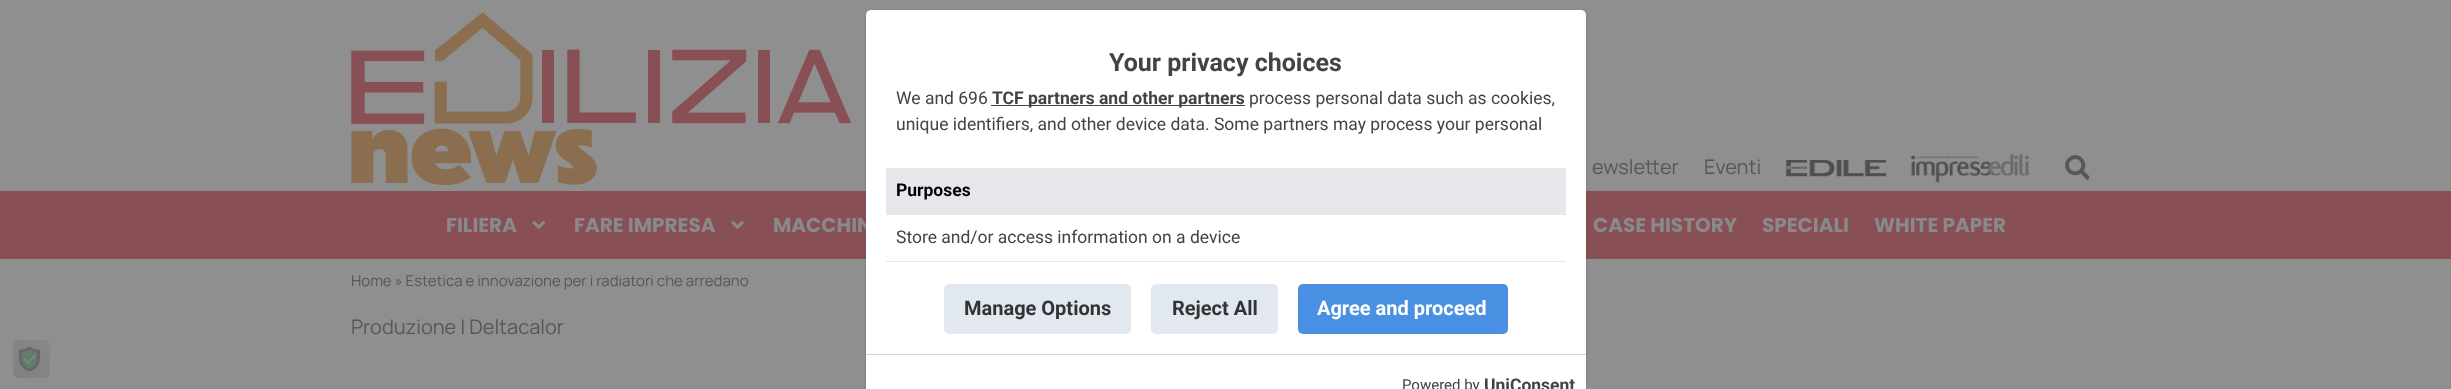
<!DOCTYPE html>
<meta charset="utf-8">
<style>body { margin: 0 } canvas { display: block }</style>
<canvas id="canvas" width="2451" height="389"></canvas>
<img id="img1" src="images/1.png" hidden>
<img id="img2" src="images/2.png" hidden>
<img id="img3" src="images/3.png" hidden>
<img id="img4" src="images/4.png" hidden>
<img id="img5" src="images/5.png" hidden>
<img id="img6" src="images/6.png" hidden>
<img id="img7" src="images/7.png" hidden>
<script>
window.onload = function () {
    const canvas = document.getElementById('canvas');
    const context = canvas.getContext('2d');
    context.miterLimit = 4;
    context.fontKerning = 'normal';
    let gradient;

    context.fillStyle = 'rgb(143, 143, 143)';
    context.fillRect(0, 0, 2451, 389);
    context.fillStyle = 'rgb(136, 80, 84)';
    context.fillRect(0, 191, 2451, 68);
    context.fillStyle = 'rgba(0, 0, 0, 0.1)';
    context.filter = 'blur(2px)';
    context.beginPath();
    context.roundRect(866, 11, 720, 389, 5);
    context.fill();
    context.filter = 'none';
    context.drawImage(document.getElementById('img1'), 351, 12, 500, 173);
    context.drawImage(document.getElementById('img2'), 1786, 160, 101, 17);
    context.drawImage(document.getElementById('img3'), 1911, 153, 118, 30);
    context.drawImage(document.getElementById('img4'), 2065, 155, 24, 25);
    context.drawImage(document.getElementById('img5'), 532, 221, 13, 8);
    context.drawImage(document.getElementById('img6'), 731, 221, 13, 8);
    gradient = context.createLinearGradient(15, 380, 47, 338);
    gradient.addColorStop(0, 'rgb(129, 129, 129)');
    gradient.addColorStop(1, 'rgb(135, 135, 135)');
    context.fillStyle = gradient;
    context.beginPath();
    context.roundRect(13, 340, 37, 38, 5);
    context.fill();
    context.drawImage(document.getElementById('img7'), 19, 346, 21, 25);
    context.font = '20px Manrope';
    context.fillStyle = 'rgb(87, 87, 87)';
    context.fillText('ewsletter', 1592, 174);
    context.fillText('Eventi', 1704, 174);
    context.font = 'bold 20px Poppins';
    context.fillStyle = 'rgb(138, 137, 137)';
    context.fillText('FILIERA', 446, 232);
    context.fillText('FARE IMPRESA', 574, 232);
    context.fillText('MACCHIN', 773, 232);
    context.fillStyle = 'rgb(255, 255, 255)';
    context.beginPath();
    context.roundRect(866, 10, 720, 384, 5);
    context.fill();
    context.font = '17.5px Roboto';
    context.fillStyle = 'rgb(67, 67, 67)';
    context.fillText('Store and/or access information on a device', 896, 243);
    context.fillStyle = 'rgb(229, 231, 235)';
    context.fillRect(886, 168, 680, 46);
    context.font = 'bold 17.5px Roboto';
    context.fillStyle = 'rgb(0, 0, 0)';
    context.fillText('Purposes', 896, 196);
    context.fillStyle = 'rgb(226, 232, 240)';
    context.fillRect(886, 261, 680, 1);
    context.fillRect(886, 214, 680, 1);
    context.font = '17.5px Roboto';
    context.fillStyle = 'rgb(67, 67, 67)';
    context.fillText('unique identifiers, and other device data. Some partners may process your personal', 896, 130);
    context.fillText('process personal data such as cookies,', 1249, 104);
    context.fillRect(991, 105, 254, 1);
    context.font = 'bold 17.5px Roboto';
    context.fillText('TCF partners and other partners', 992, 104);
    context.font = '17.5px Roboto';
    context.fillText('We and 696', 896, 104);
    context.font = 'bold 25px Roboto';
    context.fillText('Your privacy choices', 1109, 71);
    context.font = 'bold 17.5px Roboto';
    context.fillText('UniConsent', 1484, 391);
    context.font = '15px Roboto';
    context.fillText('Powered by', 1402, 390);
    context.fillStyle = 'rgb(209, 213, 219)';
    context.fillRect(866, 354, 720, 1);
    context.fillStyle = 'rgb(74, 144, 226)';
    context.beginPath();
    context.roundRect(1298, 284, 210, 50, 5);
    context.fill();
    context.font = 'bold 20px Roboto';
    context.fillStyle = 'rgb(255, 255, 255)';
    context.fillText('Agree and proceed', 1317, 315);
    context.fillStyle = 'rgb(226, 232, 240)';
    context.beginPath();
    context.roundRect(1151, 284, 127, 50, 5);
    context.fill();
    context.fillStyle = 'rgb(51, 51, 51)';
    context.fillText('Reject All', 1172, 315);
    context.fillStyle = 'rgb(226, 232, 240)';
    context.beginPath();
    context.roundRect(944, 284, 187, 50, 5);
    context.fill();
    context.fillStyle = 'rgb(51, 51, 51)';
    context.fillText('Manage Options', 964, 315);
    context.font = 'bold 20px Poppins';
    context.fillStyle = 'rgb(138, 137, 137)';
    context.fillText('CASE HISTORY', 1593, 232);
    context.fillText('SPECIALI', 1762, 232);
    context.fillText('WHITE PAPER', 1874, 232);
    context.font = '15px Manrope';
    context.fillStyle = 'rgb(87, 87, 87)';
    context.fillText('Home » Estetica e innovazione per i radiatori che arredano', 351, 286);
    context.font = '20px Manrope';
    context.fillText('Produzione | Deltacalor', 351, 334);
};
</script>
